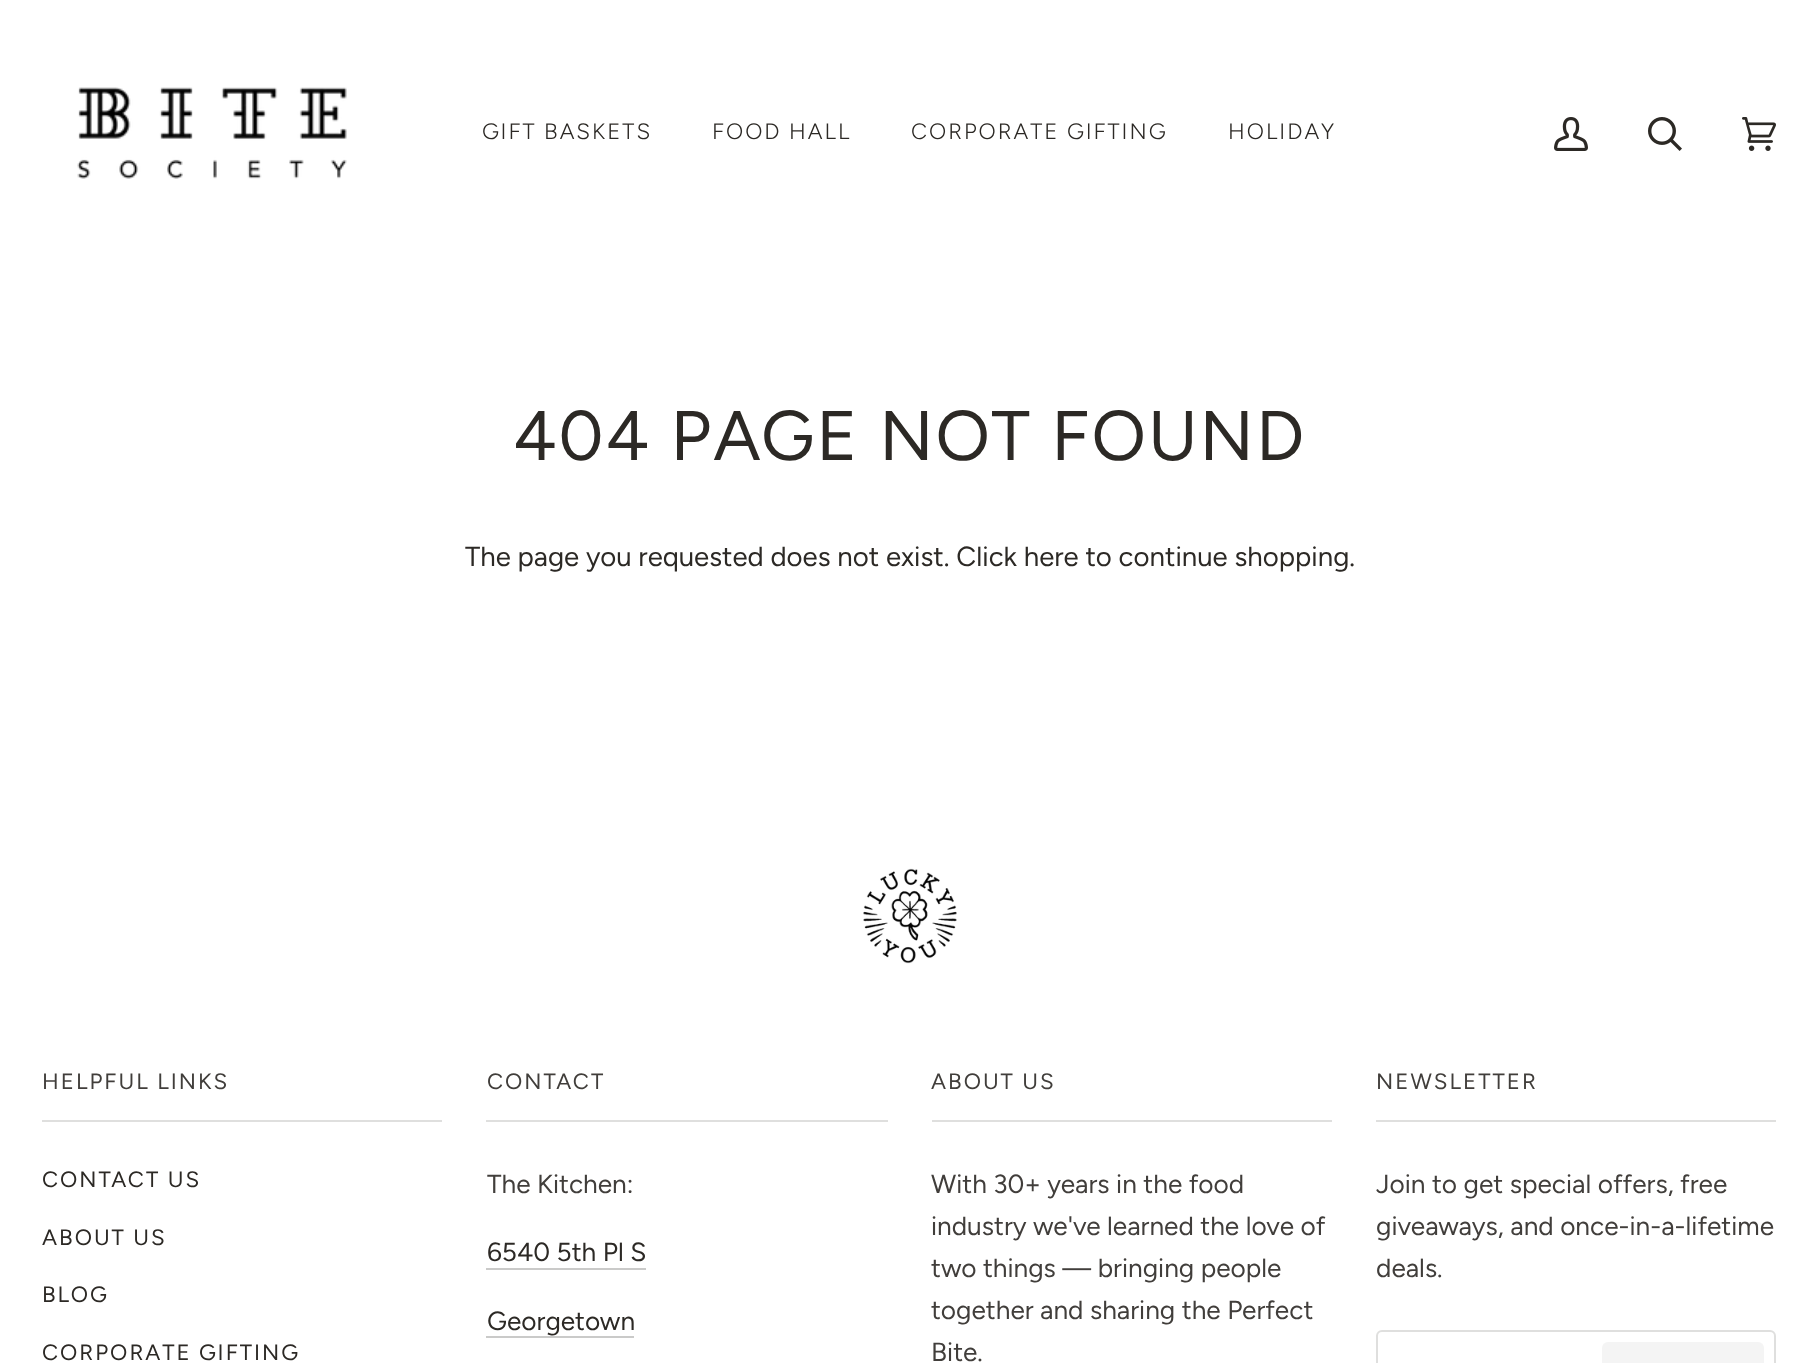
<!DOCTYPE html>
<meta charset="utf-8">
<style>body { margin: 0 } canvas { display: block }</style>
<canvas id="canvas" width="1818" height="1363"></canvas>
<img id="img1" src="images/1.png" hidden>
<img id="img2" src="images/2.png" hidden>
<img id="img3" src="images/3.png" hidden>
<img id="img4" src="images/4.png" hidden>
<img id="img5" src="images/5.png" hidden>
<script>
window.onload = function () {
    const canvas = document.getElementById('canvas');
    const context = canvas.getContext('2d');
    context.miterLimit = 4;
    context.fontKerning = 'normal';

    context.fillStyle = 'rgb(255, 255, 255)';
    context.fillRect(0, 0, 1818, 1363);
    context.drawImage(document.getElementById('img1'), 77, 87, 270, 92);
    context.drawImage(document.getElementById('img2'), 1554, 117, 34, 34);
    context.drawImage(document.getElementById('img3'), 1648, 117, 34, 34);
    context.drawImage(document.getElementById('img4'), 1742, 117, 34, 34);
    context.drawImage(document.getElementById('img5'), 863, 868, 94, 96);
    context.fillStyle = 'rgb(223, 223, 222)';
    context.fillRect(42, 1120, 400, 2);
    context.fillRect(486, 1120, 402, 2);
    context.fillStyle = 'rgb(202, 202, 201)';
    context.fillRect(486, 1268, 160, 2);
    context.fillRect(486, 1336, 148, 2);
    context.fillStyle = 'rgb(223, 223, 222)';
    context.fillRect(932, 1120, 400, 2);
    context.fillRect(1376, 1120, 400, 2);
    context.beginPath();
    context.roundRect(1377, 1331, 398, 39, 5);
    context.strokeStyle = 'rgb(223, 223, 222)';
    context.lineWidth = 2;
    context.stroke();
    context.fillStyle = 'rgb(244, 244, 244)';
    context.beginPath();
    context.roundRect(1602, 1342, 162, 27, 6);
    context.fill();
    context.letterSpacing = '2px';
    context.font = '300 22.25px Figtree';
    context.fillStyle = 'rgb(44, 41, 37)';
    context.fillText('GIFT BASKETS', 482, 139);
    context.fillText('FOOD HALL', 712, 139);
    context.fillText('CORPORATE GIFTING', 911, 139);
    context.fillText('HOLIDAY', 1228, 139);
    context.font = '70.2px Figtree';
    context.fillText('404 PAGE NOT FOUND', 513, 460);
    context.letterSpacing = '0px';
    context.font = '27.6px Figtree';
    context.fillText('The page you requested does not exist. Click here to continue shopping.', 465, 566);
    context.letterSpacing = '2px';
    context.font = '22.25px Figtree';
    context.fillStyle = 'rgb(65, 62, 59)';
    context.fillText('HELPFUL LINKS', 42, 1089);
    context.fillStyle = 'rgb(44, 41, 37)';
    context.fillText('CONTACT US', 42, 1187);
    context.fillText('ABOUT US', 42, 1245);
    context.fillText('BLOG', 42, 1302);
    context.fillText('CORPORATE GIFTING', 42, 1360);
    context.fillStyle = 'rgb(65, 62, 59)';
    context.fillText('CONTACT', 487, 1089);
    context.letterSpacing = '0px';
    context.font = '26.25px Figtree';
    context.fillText('The Kitchen:', 487, 1193);
    context.fillStyle = 'rgb(44, 41, 37)';
    context.fillText('6540 5th Pl S', 487, 1261);
    context.fillText('Georgetown', 487, 1330);
    context.letterSpacing = '2px';
    context.font = '22.25px Figtree';
    context.fillStyle = 'rgb(65, 62, 59)';
    context.fillText('ABOUT US', 931, 1089);
    context.letterSpacing = '0px';
    context.font = '26.25px Figtree';
    context.fillText('With 30+ years in the food', 931, 1193);
    context.fillText('industry we\'ve learned the love of', 931, 1235);
    context.fillText('two things — bringing people', 931, 1277);
    context.fillText('together and sharing the Perfect', 931, 1319);
    context.fillText('Bite.', 931, 1361);
    context.letterSpacing = '2px';
    context.font = '22.25px Figtree';
    context.fillText('NEWSLETTER', 1376, 1089);
    context.letterSpacing = '0px';
    context.font = '26.25px Figtree';
    context.fillText('Join to get special offers, free', 1376, 1193);
    context.fillText('giveaways, and once-in-a-lifetime', 1376, 1235);
    context.fillText('deals.', 1376, 1277);
};
</script>
